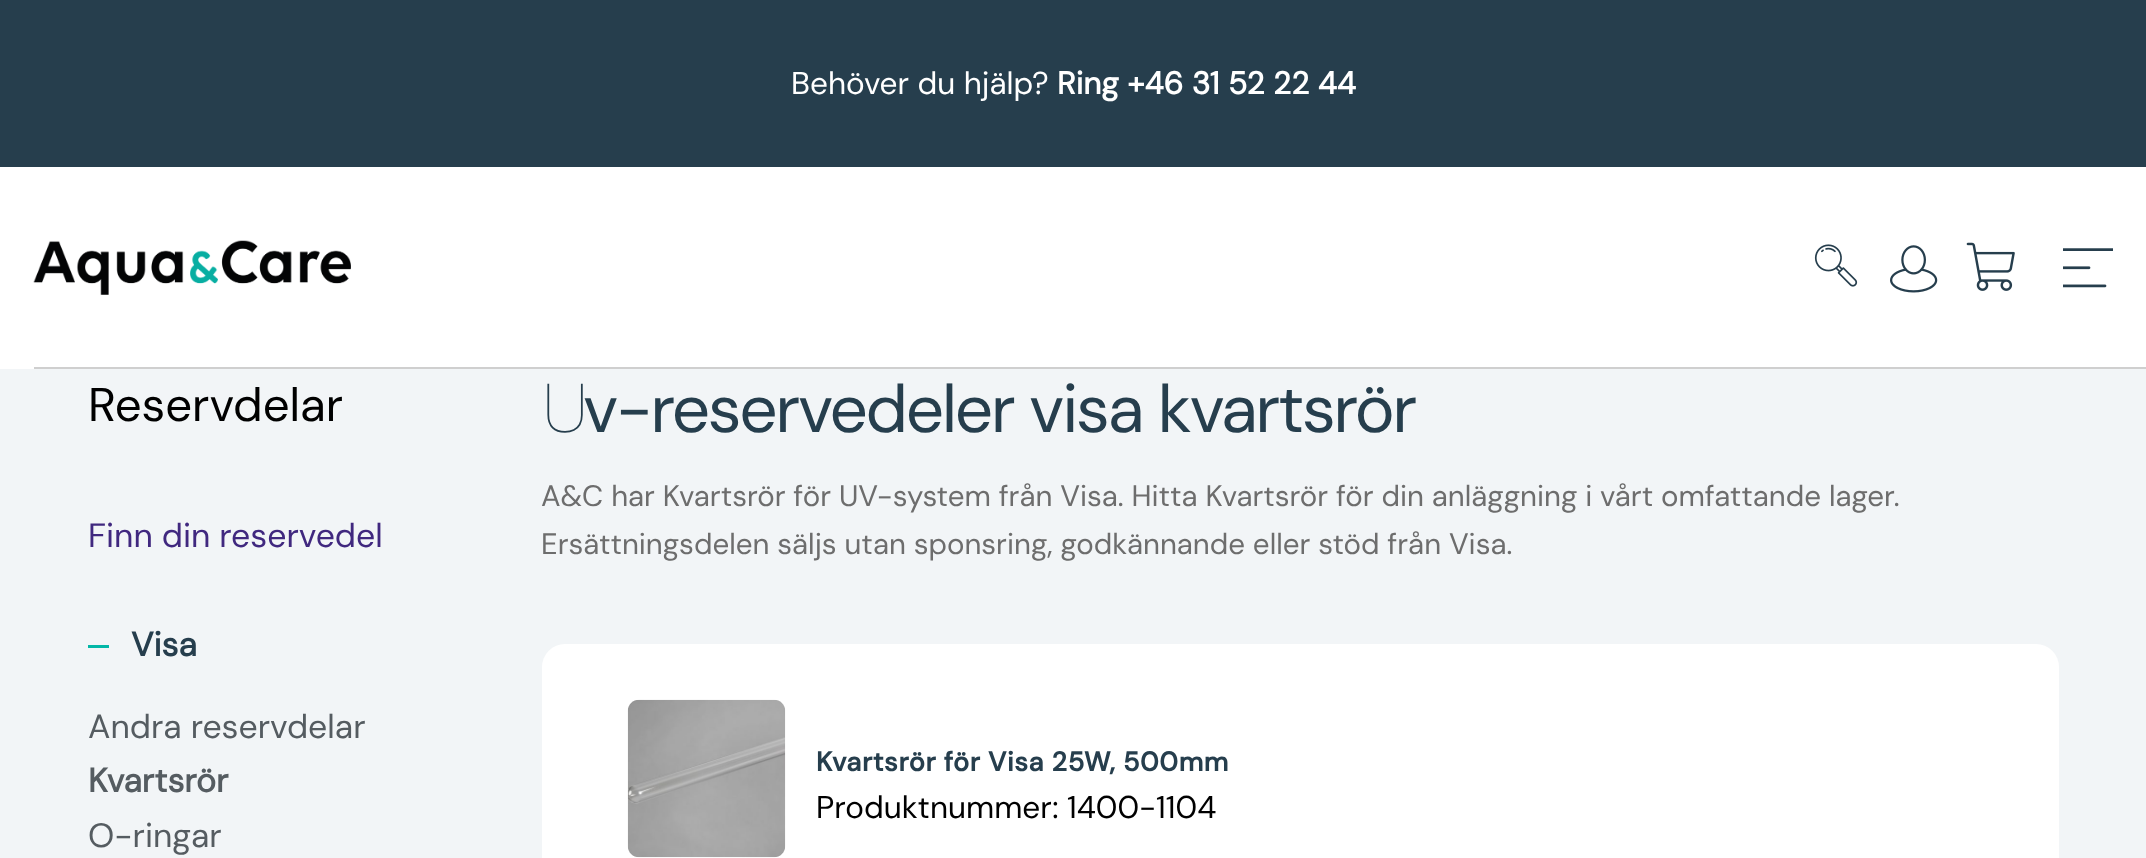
<!DOCTYPE html>
<meta charset="utf-8">
<style>body { margin: 0 } canvas { display: block }</style>
<canvas id="canvas" width="2146" height="858"></canvas>
<img id="img1" src="images/1.png" hidden>
<img id="img2" src="images/2.png" hidden>
<img id="img3" src="images/3.png" hidden>
<img id="img4" src="images/4.png" hidden>
<img id="img5" src="images/5.png" hidden>
<img id="img6" src="images/6.png" hidden>
<script>
window.onload = function () {
    const canvas = document.getElementById('canvas');
    const context = canvas.getContext('2d');
    context.miterLimit = 4;
    context.fontKerning = 'normal';

    context.fillStyle = 'rgb(242, 245, 247)';
    context.fillRect(0, 0, 2146, 858);
    context.fillStyle = 'rgb(255, 255, 255)';
    context.fillRect(0, 167, 2146, 202);
    context.fillStyle = 'rgb(38, 62, 77)';
    context.fillRect(0, 0, 2146, 167);
    context.drawImage(document.getElementById('img1'), 33, 240, 318, 55);
    context.drawImage(document.getElementById('img2'), 1814, 244, 44, 43);
    context.drawImage(document.getElementById('img3'), 1890, 245, 48, 48);
    context.drawImage(document.getElementById('img4'), 1966, 242, 49, 49);
    context.drawImage(document.getElementById('img5'), 2063, 248, 50, 40);
    context.fillStyle = 'rgb(207, 207, 207)';
    context.fillRect(34, 367, 2112, 2);
    context.fillStyle = 'rgb(3, 183, 167)';
    context.fillRect(88, 645, 21, 3);
    context.fillStyle = 'rgb(255, 255, 255)';
    context.beginPath();
    context.roundRect(542, 644, 1517, 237, 23);
    context.fill();
    context.drawImage(document.getElementById('img6'), 627, 699, 159, 159);
    context.font = '31.5px DM Sans';
    context.fillText('Behöver du hjälp?', 791, 94);
    context.font = 'bold 31.5px DM Sans';
    context.fillText('Ring +46 31 52 22 44', 1057, 94);
    context.font = '47.25px DM Sans';
    context.fillStyle = 'rgb(0, 0, 0)';
    context.fillText('Reservdelar', 88, 421);
    context.font = '33.75px DM Sans';
    context.fillStyle = 'rgb(64, 40, 127)';
    context.fillText('Finn din reservedel', 88, 547);
    context.font = 'bold 33.75px DM Sans';
    context.fillStyle = 'rgb(38, 62, 77)';
    context.fillText('Visa', 131, 656);
    context.font = '33.75px DM Sans';
    context.fillStyle = 'rgb(85, 92, 97)';
    context.fillText('Andra reservdelar', 88, 738);
    context.font = 'bold 33.75px DM Sans';
    context.fillText('Kvartsrör', 88, 792);
    context.font = '33.75px DM Sans';
    context.fillText('O-ringar', 88, 847);
    context.letterSpacing = '-2.25px';
    context.font = '100 67.5px Noto Sans';
    context.fillStyle = 'rgb(38, 62, 77)';
    context.fillText('U', 541, 432);
    context.font = '67.5px DM Sans';
    context.fillText('v-reservedeler visa kvartsrör', 583, 432);
    context.letterSpacing = '0px';
    context.font = '29.5px DM Sans';
    context.fillStyle = 'rgb(109, 109, 109)';
    context.fillText('A&C har Kvartsrör för UV-system från Visa. Hitta Kvartsrör för din anläggning i vårt omfattande lager.', 541, 506);
    context.fillText('Ersättningsdelen säljs utan sponsring, godkännande eller stöd från Visa.', 541, 554);
    context.letterSpacing = '0.55px';
    context.font = 'bold 27px "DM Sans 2"';
    context.fillStyle = 'rgb(38, 62, 77)';
    context.fillText('Kvartsrör för Visa 25W, 500mm', 816, 771);
    context.letterSpacing = '0px';
    context.font = '31.5px DM Sans';
    context.fillStyle = 'rgb(0, 0, 0)';
    context.fillText('Produktnummer: 1400-1104', 816, 818);
};
</script>
